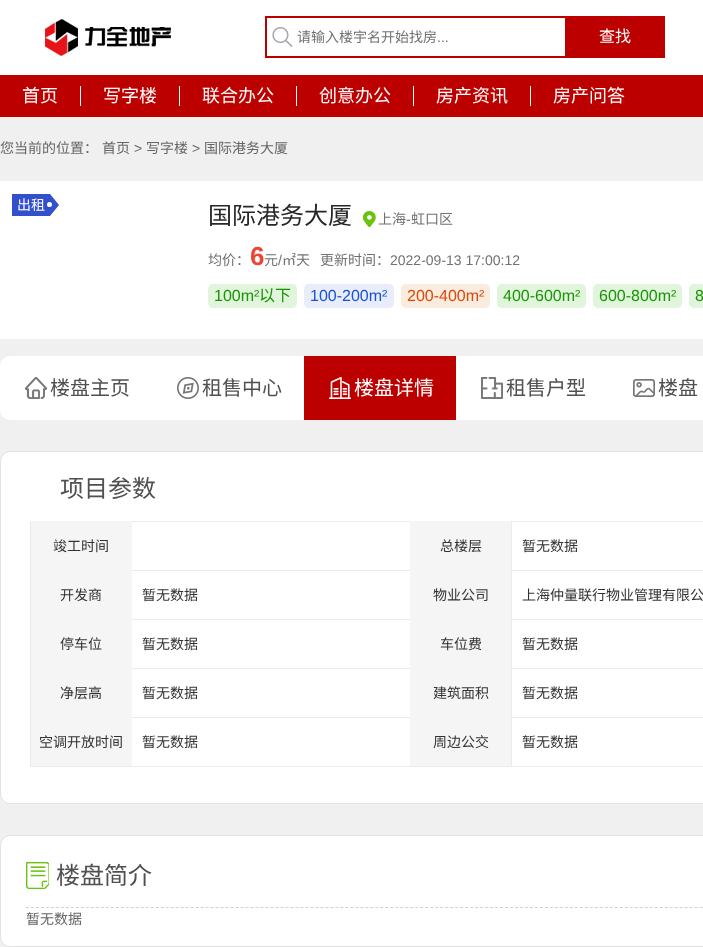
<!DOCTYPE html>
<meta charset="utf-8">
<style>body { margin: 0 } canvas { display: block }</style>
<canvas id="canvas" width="703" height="947"></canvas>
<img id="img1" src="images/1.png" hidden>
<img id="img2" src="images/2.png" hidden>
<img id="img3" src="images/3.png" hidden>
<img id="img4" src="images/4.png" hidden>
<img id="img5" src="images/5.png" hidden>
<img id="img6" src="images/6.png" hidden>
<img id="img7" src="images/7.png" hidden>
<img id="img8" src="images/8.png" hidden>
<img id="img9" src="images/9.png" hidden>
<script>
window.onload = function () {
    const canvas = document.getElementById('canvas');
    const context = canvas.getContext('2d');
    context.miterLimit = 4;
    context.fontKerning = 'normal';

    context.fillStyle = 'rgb(255, 255, 255)';
    context.fillRect(0, 0, 703, 947);
    context.drawImage(document.getElementById('img1'), 45, 19, 126, 37);
    context.drawImage(document.getElementById('img2'), 272, 27, 21, 20);
    context.fillStyle = 'rgb(188, 0, 0)';
    context.fillRect(265, 16, 300, 2);
    context.fillRect(265, 56, 300, 2);
    context.fillRect(265, 16, 2, 42);
    context.fillRect(565, 16, 100, 42);
    context.fillRect(0, 75, 703, 42);
    context.fillStyle = 'rgb(255, 255, 255)';
    context.fillRect(80, 86, 1, 20);
    context.fillRect(179, 86, 1, 20);
    context.fillRect(296, 86, 1, 20);
    context.fillRect(413, 86, 1, 20);
    context.fillRect(530, 86, 1, 20);
    context.fillStyle = 'rgb(241, 240, 240)';
    context.fillRect(0, 117, 703, 64);
    context.fillRect(0, 339, 703, 608);
    context.fillStyle = 'rgb(50, 80, 206)';
    context.fillRect(12, 194, 38, 22);
    context.beginPath();
    context.moveTo(50, 216);
    context.lineTo(50, 194);
    context.lineTo(59, 205);
    context.closePath();
    context.fill();
    context.fillStyle = 'rgb(255, 255, 255)';
    context.beginPath();
    context.arc(49.5, 204.5, 2.5, 0, 2 * Math.PI);
    context.fill();
    context.drawImage(document.getElementById('img3'), 363, 211, 13, 16);
    context.fillStyle = 'rgb(225, 244, 220)';
    context.beginPath();
    context.roundRect(208, 284, 89, 24, 5);
    context.fill();
    context.fillStyle = 'rgb(232, 236, 251)';
    context.beginPath();
    context.roundRect(304, 284, 90, 24, 5);
    context.fill();
    context.fillStyle = 'rgb(249, 235, 221)';
    context.beginPath();
    context.roundRect(401, 284, 89, 24, 5);
    context.fill();
    context.fillStyle = 'rgb(225, 244, 220)';
    context.beginPath();
    context.roundRect(497, 284, 89, 24, 5);
    context.fill();
    context.beginPath();
    context.roundRect(593, 284, 89, 24, 5);
    context.fill();
    context.beginPath();
    context.roundRect(689, 284, 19, 24, 5);
    context.fill();
    context.fillStyle = 'rgb(255, 255, 255)';
    context.beginPath();
    context.roundRect(0, 356, 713, 64, 10);
    context.fill();
    context.drawImage(document.getElementById('img4'), 25, 377, 22, 22);
    context.drawImage(document.getElementById('img5'), 177, 377, 22, 22);
    context.fillStyle = 'rgb(188, 0, 0)';
    context.fillRect(304, 356, 152, 64);
    context.drawImage(document.getElementById('img6'), 329, 377, 22, 22);
    context.drawImage(document.getElementById('img7'), 481, 377, 22, 22);
    context.drawImage(document.getElementById('img8'), 633, 379, 22, 18);
    context.fillStyle = 'rgb(255, 255, 255)';
    context.beginPath();
    context.roundRect(0.5, 451.5, 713, 352, 9.5);
    context.fill();
    context.strokeStyle = 'rgb(226, 226, 226)';
    context.stroke();
    context.fillStyle = 'rgb(235, 235, 235)';
    context.fillRect(132, 521, 571, 1);
    context.fillRect(30, 766, 673, 1);
    context.fillRect(30, 521, 1, 246);
    context.fillRect(131, 570, 280, 1);
    context.fillRect(131, 619, 280, 1);
    context.fillRect(131, 668, 280, 1);
    context.fillRect(131, 717, 280, 1);
    context.fillStyle = 'rgb(245, 245, 245)';
    context.fillRect(31, 521, 101, 245);
    context.fillRect(410, 521, 101, 245);
    context.fillStyle = 'rgb(235, 235, 235)';
    context.fillRect(511, 570, 192, 1);
    context.fillRect(511, 619, 192, 1);
    context.fillRect(511, 668, 192, 1);
    context.fillRect(511, 717, 192, 1);
    context.fillRect(511, 717, 1, 50);
    context.fillRect(511, 668, 1, 50);
    context.fillRect(511, 619, 1, 50);
    context.fillRect(511, 521, 1, 99);
    context.fillStyle = 'rgb(255, 255, 255)';
    context.beginPath();
    context.roundRect(0.5, 835.5, 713, 111, 9.5);
    context.fill();
    context.stroke();
    context.drawImage(document.getElementById('img9'), 26, 862, 23, 27);
    context.beginPath();
    context.moveTo(26, 907.5);
    context.lineTo(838, 907.5);
    context.strokeStyle = 'rgb(210, 210, 210)';
    context.setLineDash([3, 1.99]);
    context.stroke();
    context.font = '14px Noto Sans CJK SC';
    context.fillStyle = 'rgb(113, 113, 113)';
    context.fillText('请输入楼宇名开始找房', 297, 42);
    context.font = '14px Liberation Sans';
    context.fillText('...', 437, 42);
    context.font = '16px Noto Sans CJK SC';
    context.fillStyle = 'rgb(255, 255, 255)';
    context.fillText('查找', 599, 42);
    context.font = '18px Noto Sans CJK SC';
    context.fillText('首页', 22, 102);
    context.fillText('写字楼', 103, 102);
    context.fillText('联合办公', 202, 102);
    context.fillText('创意办公', 319, 102);
    context.fillText('房产资讯', 436, 102);
    context.fillText('房产问答', 553, 102);
    context.font = '14px Noto Sans CJK SC';
    context.fillStyle = 'rgb(102, 102, 102)';
    context.fillText('您当前的位置：', 0, 153);
    context.fillText('首页', 102, 153);
    context.font = '14px Liberation Sans';
    context.fillText('>', 134, 153);
    context.font = '14px Noto Sans CJK SC';
    context.fillText('写字楼', 146, 153);
    context.font = '14px Liberation Sans';
    context.fillText('>', 192, 153);
    context.font = '14px Noto Sans CJK SC';
    context.fillText('国际港务大厦', 204, 153);
    context.fillStyle = 'rgb(255, 255, 255)';
    context.fillText('出租', 17, 210);
    context.font = '24px Noto Sans CJK SC';
    context.fillStyle = 'rgb(39, 39, 39)';
    context.fillText('国际港务大厦', 208, 224);
    context.font = '14px Noto Sans CJK SC';
    context.fillStyle = 'rgb(113, 113, 113)';
    context.fillText('上海', 378, 224);
    context.font = '14px Liberation Sans';
    context.fillStyle = 'rgb(102, 102, 102)';
    context.fillText('-', 406, 224);
    context.font = '14px Noto Sans CJK SC';
    context.fillStyle = 'rgb(113, 113, 113)';
    context.fillText('虹口区', 411, 224);
    context.fillText('均价：', 208, 265);
    context.font = 'bold 26px Liberation Sans';
    context.fillStyle = 'rgb(238, 68, 51)';
    context.fillText('6', 250, 265);
    context.font = '14px Noto Sans CJK SC';
    context.fillStyle = 'rgb(113, 113, 113)';
    context.fillText('元', 264, 265);
    context.font = '14px Liberation Sans';
    context.fillText('/', 278, 265);
    context.font = '14px Noto Sans CJK SC';
    context.fillText('㎡天', 282, 265);
    context.fillText('更新时间：', 320, 265);
    context.font = '14px Liberation Sans';
    context.fillText('2022-09-13 17:00:12', 390, 265);
    context.font = '16px Liberation Sans';
    context.fillStyle = 'rgb(25, 149, 4)';
    context.fillText('100m²', 214, 301);
    context.font = '16px Noto Sans CJK SC';
    context.fillText('以下', 259, 301);
    context.font = '16px Liberation Sans';
    context.fillStyle = 'rgb(25, 83, 216)';
    context.fillText('100-200m²', 310, 301);
    context.fillStyle = 'rgb(218, 73, 9)';
    context.fillText('200-400m²', 407, 301);
    context.fillStyle = 'rgb(25, 149, 4)';
    context.fillText('400-600m²', 503, 301);
    context.fillText('600-800m²', 599, 301);
    context.fillText('8', 695, 301);
    context.font = '20px Noto Sans CJK SC';
    context.fillStyle = 'rgb(80, 80, 80)';
    context.fillText('楼盘主页', 50, 395);
    context.fillText('租售中心', 202, 395);
    context.fillStyle = 'rgb(255, 255, 255)';
    context.fillText('楼盘详情', 354, 395);
    context.fillStyle = 'rgb(80, 80, 80)';
    context.fillText('租售户型', 506, 395);
    context.fillText('楼盘', 658, 395);
    context.font = '24px Noto Sans CJK SC';
    context.fillText('项目参数', 60, 497);
    context.font = '14px Noto Sans CJK SC';
    context.fillStyle = 'rgb(51, 51, 51)';
    context.fillText('竣工时间', 53, 551);
    context.fillText('总楼层', 440, 551);
    context.fillText('暂无数据', 522, 551);
    context.fillText('开发商', 60, 600);
    context.fillText('暂无数据', 142, 600);
    context.fillText('物业公司', 433, 600);
    context.fillText('上海仲量联行物业管理有限公', 522, 600);
    context.fillText('停车位', 60, 649);
    context.fillText('暂无数据', 142, 649);
    context.fillText('车位费', 440, 649);
    context.fillText('暂无数据', 522, 649);
    context.fillText('净层高', 60, 698);
    context.fillText('暂无数据', 142, 698);
    context.fillText('建筑面积', 433, 698);
    context.fillText('暂无数据', 522, 698);
    context.fillText('空调开放时间', 39, 747);
    context.fillText('暂无数据', 142, 747);
    context.fillText('周边公交', 433, 747);
    context.fillText('暂无数据', 522, 747);
    context.font = '24px Noto Sans CJK SC';
    context.fillStyle = 'rgb(80, 80, 80)';
    context.fillText('楼盘简介', 56, 884);
    context.font = '14px Noto Sans CJK SC';
    context.fillStyle = 'rgb(102, 102, 102)';
    context.fillText('暂无数据', 26, 924);
};
</script>
